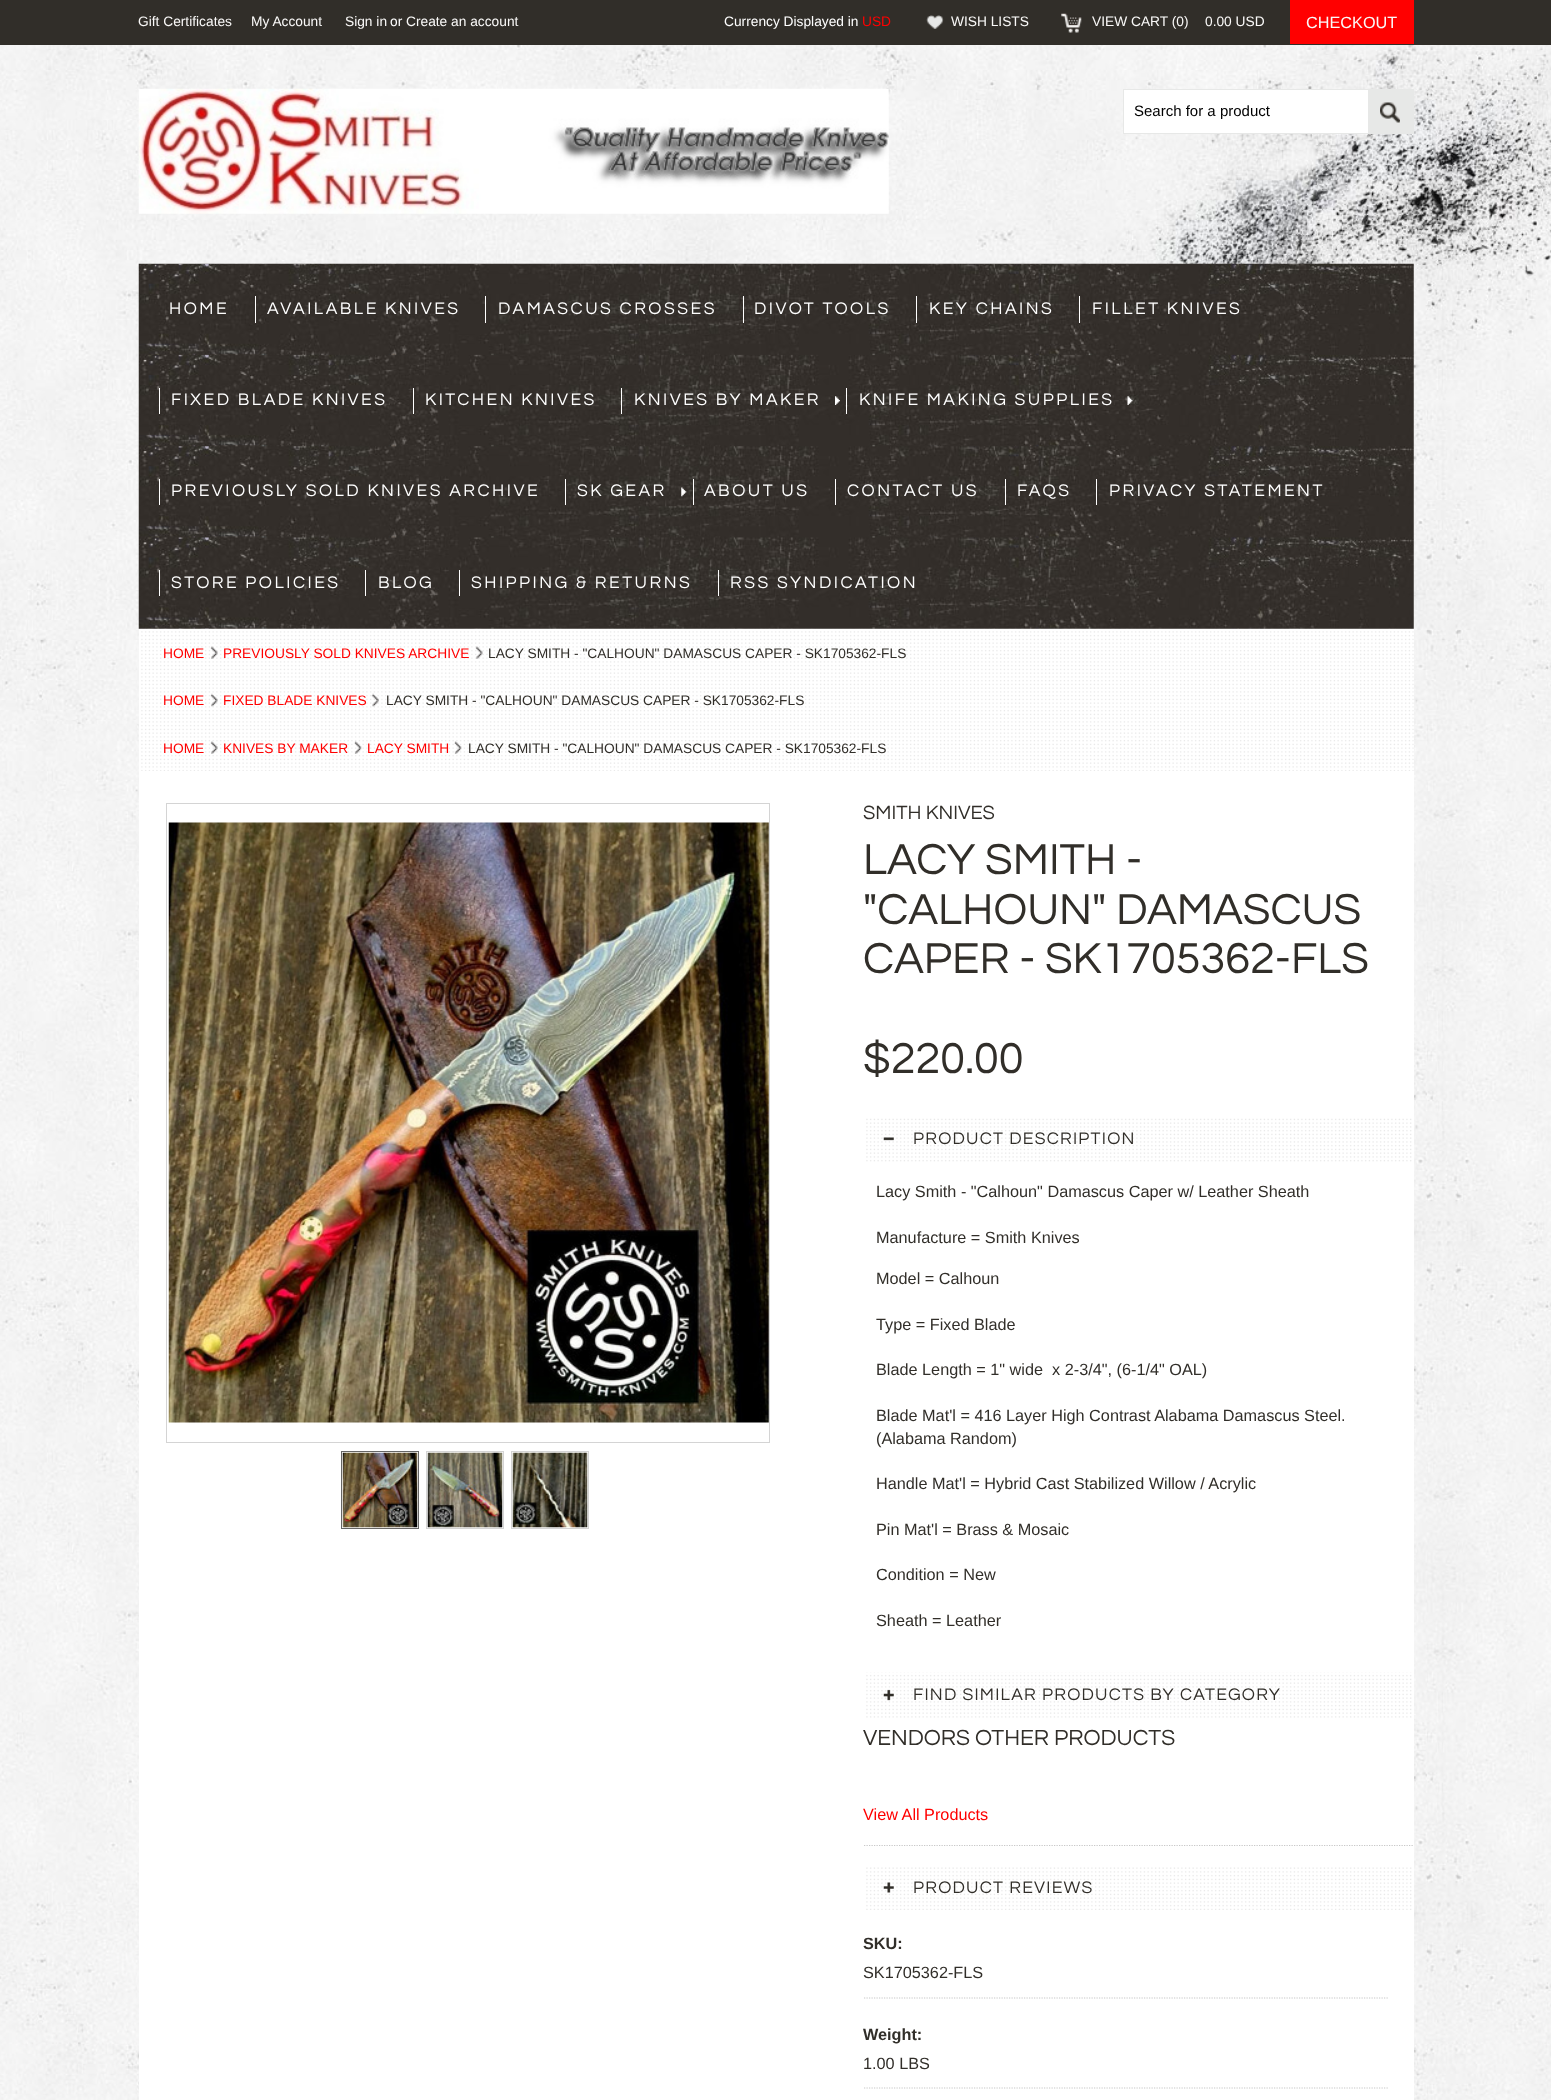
<!DOCTYPE html>
<meta charset="utf-8">
<style>body { margin: 0 } canvas { display: block }</style>
<canvas id="canvas" width="1551" height="2100"></canvas>
<img id="img1" src="images/1.png" hidden>
<img id="img2" src="images/2.png" hidden>
<img id="img3" src="images/3.png" hidden>
<img id="img4" src="images/4.png" hidden>
<img id="img5" src="images/5.png" hidden>
<img id="img6" src="images/6.png" hidden>
<img id="img7" src="images/7.png" hidden>
<img id="img8" src="images/8.png" hidden>
<img id="img9" src="images/9.png" hidden>
<img id="img10" src="images/10.png" hidden>
<img id="img11" src="images/11.png" hidden>
<img id="img12" src="images/12.png" hidden>
<img id="img13" src="images/13.png" hidden>
<img id="img14" src="images/14.png" hidden>
<img id="img15" src="images/15.png" hidden>
<img id="img16" src="images/16.png" hidden>
<img id="img17" src="images/17.png" hidden>
<img id="img18" src="images/18.png" hidden>
<img id="img19" src="images/19.png" hidden>
<img id="img20" src="images/20.png" hidden>
<img id="img21" src="images/21.png" hidden>
<img id="img22" src="images/22.png" hidden>
<img id="img23" src="images/23.png" hidden>
<img id="img24" src="images/24.png" hidden>
<img id="img25" src="images/25.png" hidden>
<img id="img26" src="images/26.png" hidden>
<img id="img27" src="images/27.png" hidden>
<img id="img28" src="images/28.png" hidden>
<script>
window.onload = function () {
    const canvas = document.getElementById('canvas');
    const context = canvas.getContext('2d');
    context.miterLimit = 4;
    context.fontKerning = 'normal';

    context.fillStyle = 'rgb(255, 255, 255)';
    context.fillRect(0, 0, 1551, 2100);
    context.drawImage(document.getElementById('img1'), 0, 723, 1551, 1377);
    context.drawImage(document.getElementById('img2'), 0, 45, 1551, 679);
    context.fillStyle = 'rgb(49, 46, 41)';
    context.fillRect(0, 0, 1551, 45);
    context.drawImage(document.getElementById('img3'), 926, 15, 18, 14);
    context.drawImage(document.getElementById('img4'), 1061, 13, 21, 20);
    context.fillStyle = 'rgb(255, 0, 0)';
    context.fillRect(1290, 0, 124, 44);
    context.drawImage(document.getElementById('img5'), 138, 88, 751, 126);
    context.fillStyle = 'rgb(255, 255, 255)';
    context.fillRect(1124, 90, 244, 43);
    context.strokeStyle = 'rgb(231, 232, 231)';
    context.strokeRect(1123.5, 89.5, 290, 44);
    context.fillStyle = 'rgb(231, 232, 231)';
    context.fillRect(1368, 90, 45, 43);
    context.drawImage(document.getElementById('img6'), 1380, 102, 20, 21);
    context.drawImage(document.getElementById('img7'), 138, 263, 1276, 366);
    context.fillStyle = 'rgb(255, 255, 255)';
    context.fillRect(255, 296, 1, 27);
    context.fillRect(485, 296, 1, 27);
    context.fillRect(743, 296, 1, 27);
    context.fillRect(916, 296, 1, 27);
    context.fillRect(1079, 296, 1, 27);
    context.fillRect(159, 388, 1, 26);
    context.fillRect(413, 388, 1, 26);
    context.fillRect(621, 388, 1, 26);
    context.drawImage(document.getElementById('img8'), 835, 396, 5, 9);
    context.fillRect(846, 388, 1, 26);
    context.drawImage(document.getElementById('img9'), 1127, 396, 6, 9);
    context.fillRect(159, 479, 1, 26);
    context.fillRect(565, 479, 1, 26);
    context.drawImage(document.getElementById('img10'), 681, 487, 6, 10);
    context.fillRect(693, 479, 1, 26);
    context.fillRect(835, 479, 1, 26);
    context.fillRect(1005, 479, 1, 26);
    context.fillRect(1096, 479, 1, 26);
    context.fillRect(159, 570, 1, 26);
    context.fillRect(365, 570, 1, 26);
    context.fillRect(459, 570, 1, 26);
    context.fillRect(718, 570, 1, 26);
    context.fillRect(139, 629, 1275, 1471);
    context.drawImage(document.getElementById('img11'), 141, 631, 1273, 140);
    context.drawImage(document.getElementById('img12'), 210, 646, 8, 13);
    context.drawImage(document.getElementById('img13'), 475, 646, 8, 13);
    context.drawImage(document.getElementById('img14'), 210, 693, 8, 14);
    context.drawImage(document.getElementById('img15'), 371, 693, 8, 14);
    context.drawImage(document.getElementById('img16'), 210, 741, 8, 13);
    context.drawImage(document.getElementById('img17'), 354, 741, 8, 13);
    context.drawImage(document.getElementById('img18'), 454, 741, 8, 13);
    context.strokeStyle = 'rgb(212, 212, 212)';
    context.strokeRect(166.5, 803.5, 603, 639);
    context.drawImage(document.getElementById('img19'), 168, 822, 601, 601);
    context.strokeStyle = 'rgb(102, 102, 102)';
    context.strokeRect(341.5, 1451.5, 77, 77);
    context.drawImage(document.getElementById('img20'), 342, 1452, 76, 76);
    context.strokeStyle = 'rgb(212, 212, 212)';
    context.strokeRect(426.5, 1451.5, 77, 77);
    context.drawImage(document.getElementById('img21'), 427, 1452, 76, 76);
    context.strokeRect(511.5, 1451.5, 77, 77);
    context.drawImage(document.getElementById('img22'), 512, 1452, 76, 76);
    context.drawImage(document.getElementById('img23'), 866, 1118, 546, 44);
    context.drawImage(document.getElementById('img24'), 883, 1137, 11, 4);
    context.drawImage(document.getElementById('img25'), 866, 1672, 546, 46);
    context.drawImage(document.getElementById('img26'), 883, 1689, 11, 12);
    context.beginPath();
    context.moveTo(864, 1845.5);
    context.lineTo(1414, 1845.5);
    context.strokeStyle = 'rgb(200, 200, 200)';
    context.lineWidth = 1.2;
    context.setLineDash([1.25, 1.25]);
    context.stroke();
    context.drawImage(document.getElementById('img27'), 866, 1867, 546, 43);
    context.drawImage(document.getElementById('img28'), 883, 1882, 11, 11);
    context.beginPath();
    context.moveTo(864, 1998);
    context.lineTo(1389, 1998);
    context.stroke();
    context.beginPath();
    context.moveTo(864, 2088);
    context.lineTo(1389, 2088);
    context.stroke();
    context.font = '13.75px Liberation Sans';
    context.fillStyle = 'rgb(250, 249, 248)';
    context.fillText('Gift Certificates', 138, 26);
    context.fillText('My Account', 251, 26);
    context.fillText('Sign in', 345, 26);
    context.fillStyle = 'rgb(255, 255, 255)';
    context.fillText('or', 390, 26);
    context.fillStyle = 'rgb(250, 249, 248)';
    context.fillText('Create an account', 406, 26);
    context.fillStyle = 'rgb(255, 255, 255)';
    context.fillText('Currency Displayed in', 724, 26);
    context.fillStyle = 'rgb(255, 0, 0)';
    context.fillText('USD', 862, 26);
    context.fillStyle = 'rgb(250, 249, 248)';
    context.fillText('WISH LISTS', 951, 26);
    context.fillText('VIEW CART (0)', 1092, 26);
    context.fillText('0.00 USD', 1205, 26);
    context.font = '16.25px Liberation Sans';
    context.fillText('CHECKOUT', 1306, 28);
    context.font = '15px Liberation Sans';
    context.fillStyle = 'rgb(0, 0, 0)';
    context.fillText('Search for a product', 1134, 116);
    context.letterSpacing = '2.5px';
    context.font = '17.5px Questrial';
    context.fillStyle = 'rgb(255, 255, 255)';
    context.fillText('HOME', 169, 314);
    context.fillText('AVAILABLE KNIVES', 267, 314);
    context.fillText('DAMASCUS CROSSES', 498, 314);
    context.fillText('DIVOT TOOLS', 754, 314);
    context.fillText('KEY CHAINS', 929, 314);
    context.fillText('FILLET KNIVES', 1092, 314);
    context.fillText('FIXED BLADE KNIVES', 171, 405);
    context.fillText('KITCHEN KNIVES', 425, 405);
    context.fillText('KNIVES BY MAKER', 634, 405);
    context.fillText('KNIFE MAKING SUPPLIES', 859, 405);
    context.fillText('PREVIOUSLY SOLD KNIVES ARCHIVE', 171, 496);
    context.fillText('SK GEAR', 577, 496);
    context.fillText('ABOUT US', 704, 496);
    context.fillText('CONTACT US', 847, 496);
    context.fillText('FAQS', 1017, 496);
    context.fillText('PRIVACY STATEMENT', 1109, 496);
    context.fillText('STORE POLICIES', 171, 588);
    context.fillText('BLOG', 378, 588);
    context.fillText('SHIPPING & RETURNS', 471, 588);
    context.fillText('RSS SYNDICATION', 730, 588);
    context.letterSpacing = '0px';
    context.font = '13.75px Liberation Sans';
    context.fillStyle = 'rgb(255, 0, 0)';
    context.fillText('HOME', 163, 658);
    context.fillText('PREVIOUSLY SOLD KNIVES ARCHIVE', 223, 658);
    context.fillStyle = 'rgb(49, 46, 41)';
    context.fillText('LACY SMITH - "CALHOUN" DAMASCUS CAPER - SK1705362-FLS', 488, 658);
    context.fillStyle = 'rgb(255, 0, 0)';
    context.fillText('HOME', 163, 705);
    context.fillText('FIXED BLADE KNIVES', 223, 705);
    context.fillStyle = 'rgb(49, 46, 41)';
    context.fillText('LACY SMITH - "CALHOUN" DAMASCUS CAPER - SK1705362-FLS', 386, 705);
    context.fillStyle = 'rgb(255, 0, 0)';
    context.fillText('HOME', 163, 753);
    context.fillText('KNIVES BY MAKER', 223, 753);
    context.fillText('LACY SMITH', 367, 753);
    context.fillStyle = 'rgb(49, 46, 41)';
    context.fillText('LACY SMITH - "CALHOUN" DAMASCUS CAPER - SK1705362-FLS', 468, 753);
    context.font = '20px Questrial';
    context.fillText('SMITH KNIVES', 863, 819);
    context.font = '45px Questrial';
    context.fillText('LACY SMITH -', 863, 874);
    context.fillText('"CALHOUN" DAMASCUS', 863, 924);
    context.fillText('CAPER - SK1705362-FLS', 863, 973);
    context.fillText('$220.00', 863, 1073);
    context.letterSpacing = '1.25px';
    context.font = '17.5px Questrial';
    context.fillText('PRODUCT DESCRIPTION', 913, 1144);
    context.letterSpacing = '0px';
    context.font = '16.25px Liberation Sans';
    context.fillText('Lacy Smith - "Calhoun" Damascus Caper w/ Leather Sheath', 876, 1197);
    context.fillText('Manufacture = Smith Knives', 876, 1243);
    context.fillText('Model = Calhoun', 876, 1284);
    context.fillText('Type = Fixed Blade', 876, 1330);
    context.fillText('Blade Length = 1" wide  x 2-3/4", (6-1/4" OAL)', 876, 1375);
    context.fillText('Blade Mat\'l = 416 Layer High Contrast Alabama Damascus Steel.', 876, 1421);
    context.fillText('(Alabama Random)', 876, 1444);
    context.fillText('Handle Mat\'l = Hybrid Cast Stabilized Willow / Acrylic', 876, 1489);
    context.fillText('Pin Mat\'l = Brass & Mosaic', 876, 1535);
    context.fillText('Condition = New', 876, 1580);
    context.fillText('Sheath = Leather', 876, 1626);
    context.letterSpacing = '1.25px';
    context.font = '17.5px Questrial';
    context.fillText('FIND SIMILAR PRODUCTS BY CATEGORY', 913, 1700);
    context.letterSpacing = '0px';
    context.font = '22.75px Questrial';
    context.fillText('VENDORS OTHER PRODUCTS', 863, 1745);
    context.font = '16.25px Liberation Sans';
    context.fillStyle = 'rgb(255, 0, 0)';
    context.fillText('View All Products', 863, 1820);
    context.letterSpacing = '1.25px';
    context.font = '17.5px Questrial';
    context.fillStyle = 'rgb(49, 46, 41)';
    context.fillText('PRODUCT REVIEWS', 913, 1893);
    context.letterSpacing = '0px';
    context.font = 'bold 16.25px Liberation Sans';
    context.fillText('SKU:', 863, 1949);
    context.font = '16.25px Liberation Sans';
    context.fillText('SK1705362-FLS', 863, 1978);
    context.font = 'bold 16.25px Liberation Sans';
    context.fillText('Weight:', 863, 2040);
    context.font = '16.25px Liberation Sans';
    context.fillText('1.00 LBS', 863, 2069);
};
</script>
